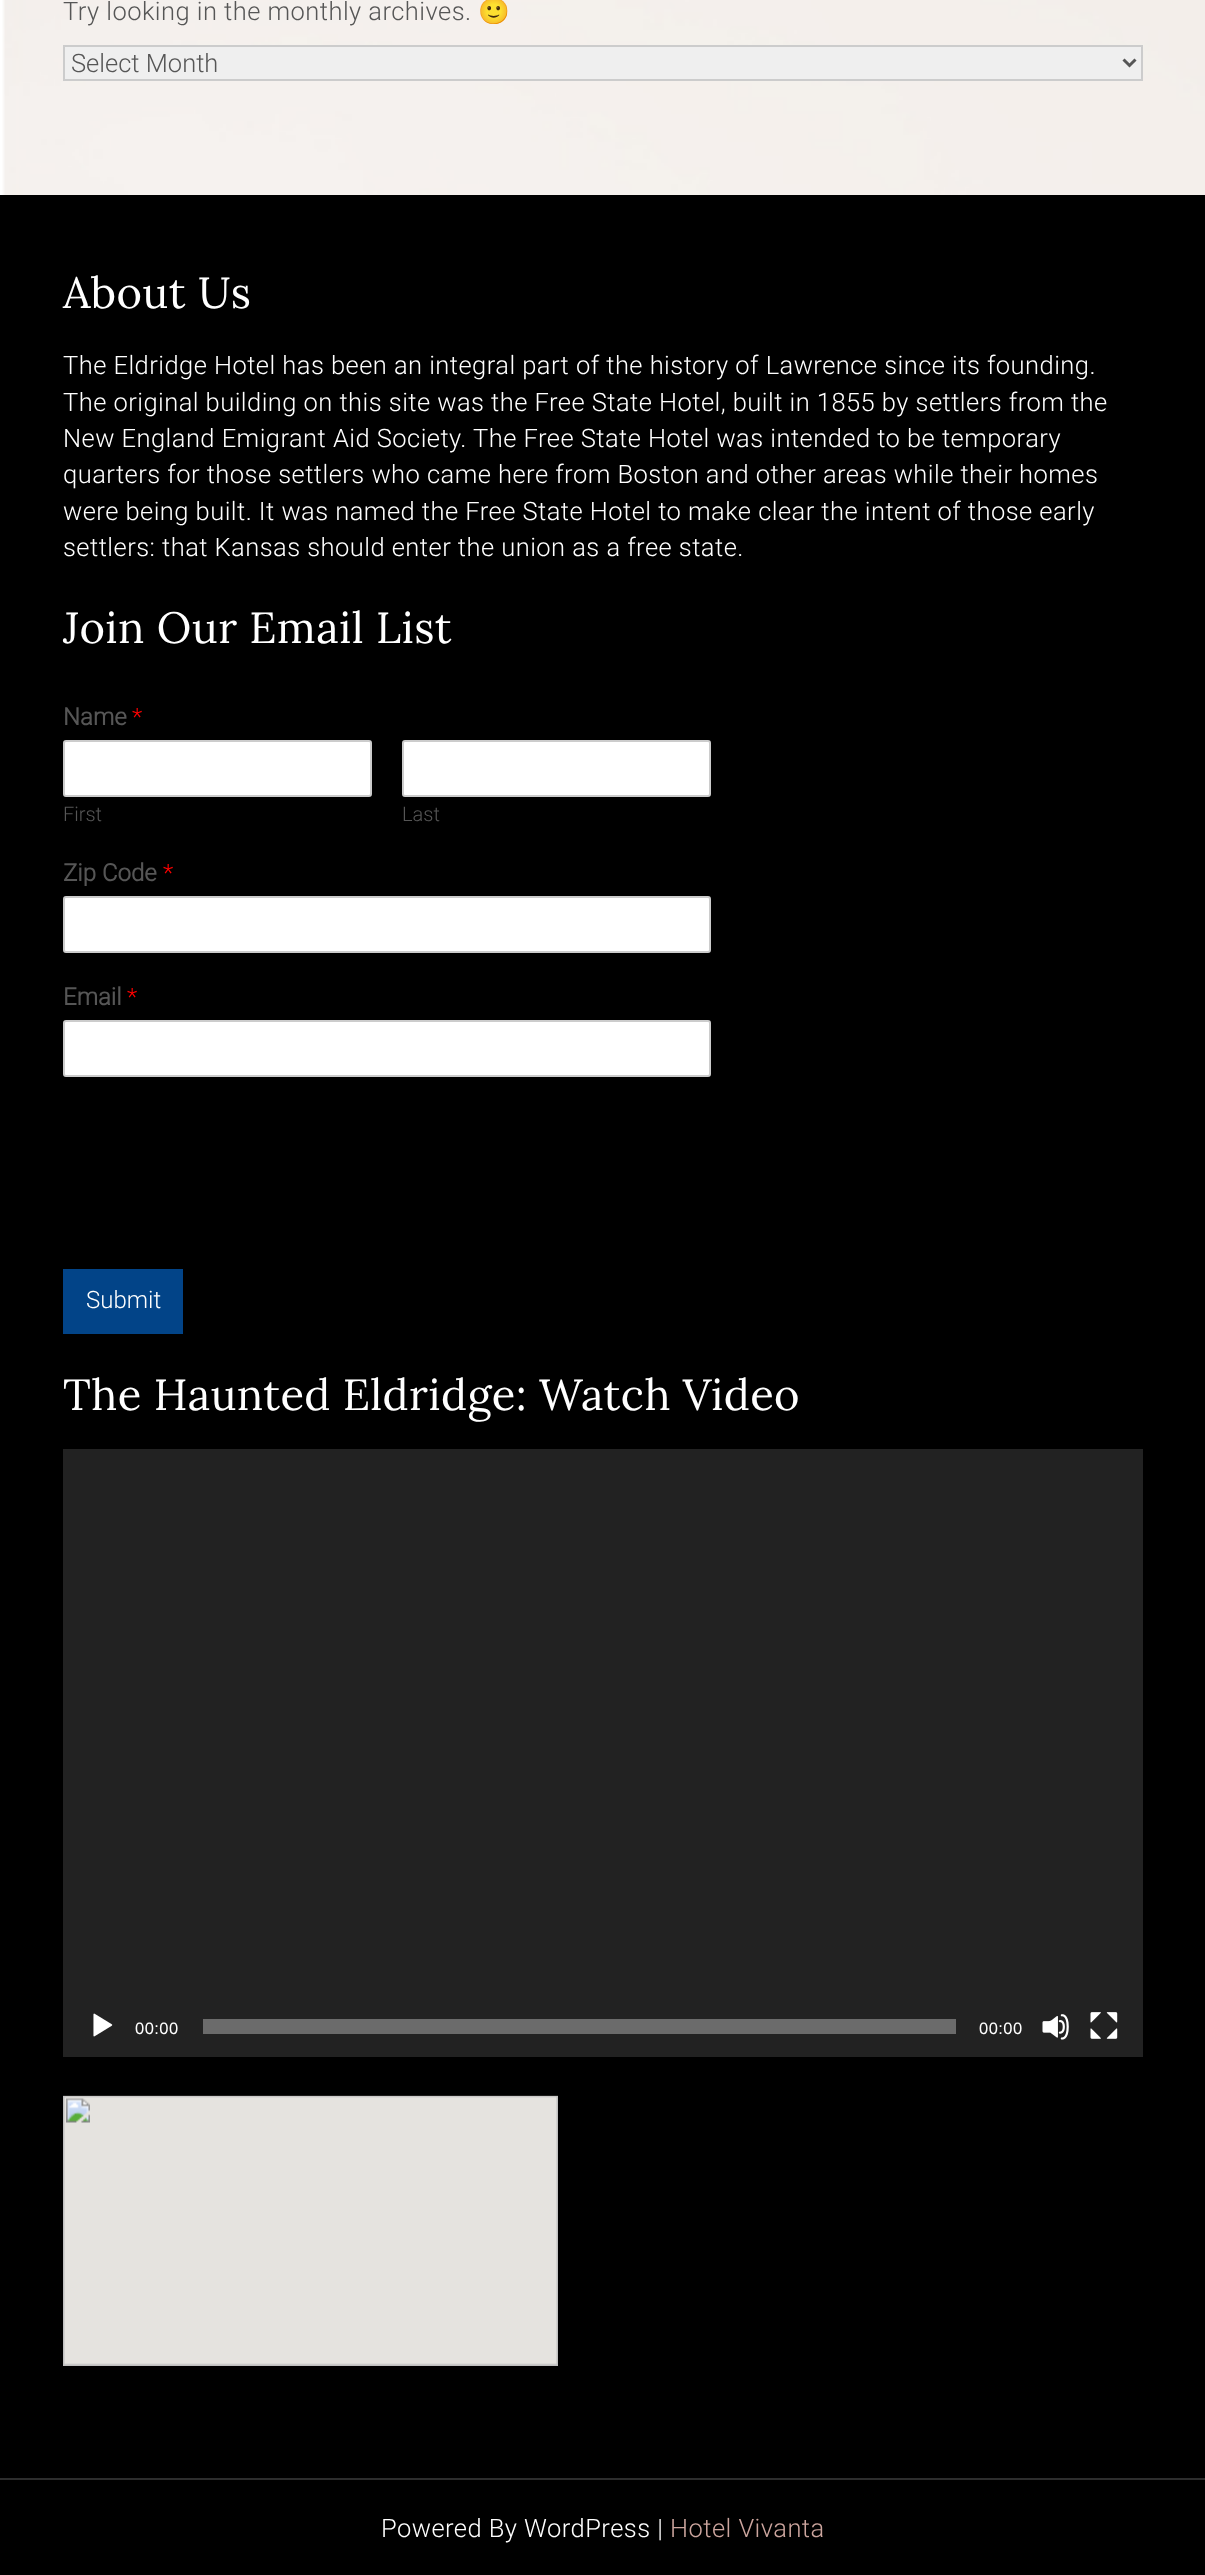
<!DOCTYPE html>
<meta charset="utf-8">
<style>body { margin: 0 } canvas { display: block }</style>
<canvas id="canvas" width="1205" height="2575"></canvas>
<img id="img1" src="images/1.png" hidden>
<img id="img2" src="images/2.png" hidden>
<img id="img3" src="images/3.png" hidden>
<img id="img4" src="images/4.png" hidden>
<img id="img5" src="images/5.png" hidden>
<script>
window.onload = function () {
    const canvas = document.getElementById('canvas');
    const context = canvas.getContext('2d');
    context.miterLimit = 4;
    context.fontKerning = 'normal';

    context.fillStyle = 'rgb(255, 255, 255)';
    context.fillRect(0, 0, 1205, 2575);
    context.drawImage(document.getElementById('img1'), 2, 0, 1203, 195);
    context.fillStyle = 'rgb(239, 239, 239)';
    context.beginPath();
    context.rect(64, 46, 1078, 34);
    context.fill();
    context.strokeStyle = 'rgb(204, 204, 204)';
    context.lineWidth = 2;
    context.stroke();
    context.beginPath();
    context.moveTo(1123.5, 59.5);
    context.lineTo(1129.5, 65.5);
    context.lineTo(1135.5, 59.5);
    context.strokeStyle = 'rgb(86, 86, 86)';
    context.lineWidth = 3;
    context.stroke();
    context.fillStyle = 'rgb(0, 0, 0)';
    context.fillRect(0, 195, 1205, 2380);
    context.fillStyle = 'rgb(255, 255, 255)';
    context.beginPath();
    context.roundRect(64, 741, 307, 55, 2);
    context.fill();
    context.strokeStyle = 'rgb(204, 204, 204)';
    context.lineWidth = 2;
    context.stroke();
    context.beginPath();
    context.roundRect(403, 741, 307, 55, 2);
    context.fill();
    context.stroke();
    context.beginPath();
    context.roundRect(64, 897, 646, 55, 2);
    context.fill();
    context.stroke();
    context.beginPath();
    context.roundRect(64, 1021, 646, 55, 2);
    context.fill();
    context.stroke();
    context.fillStyle = 'rgb(2, 68, 136)';
    context.fillRect(63, 1269, 120, 65);
    context.fillStyle = 'rgb(34, 34, 34)';
    context.fillRect(63, 1449, 1080, 608);
    context.drawImage(document.getElementById('img2'), 93, 2013, 20, 24);
    context.fillStyle = 'rgb(107, 107, 107)';
    context.fillRect(203, 2019, 753, 15);
    context.drawImage(document.getElementById('img3'), 1042, 2014, 27, 26);
    context.drawImage(document.getElementById('img4'), 1090, 2012, 28, 27);
    context.drawImage(document.getElementById('img5'), 63, 2095, 495, 271);
    context.fillStyle = 'rgb(45, 45, 45)';
    context.fillRect(0, 2478, 1205, 2);
    context.letterSpacing = '0.45px';
    context.font = '300 25.5px Roboto';
    context.fillStyle = 'rgb(86, 86, 86)';
    context.fillText('Try looking in the monthly archives.', 63, 20);
    context.font = '25.5px Noto Color Emoji';
    context.fillText('🙂', 478, 20);
    context.letterSpacing = '0px';
    context.font = '300 25.5px Roboto';
    context.fillText('Select Month', 71, 72);
    context.letterSpacing = '0.45px';
    context.font = '43.5px Lora';
    context.fillStyle = 'rgb(255, 255, 255)';
    context.fillText('About Us', 63, 308);
    context.font = '300 25.5px Roboto';
    context.fillText('The Eldridge Hotel has been an integral part of the history of Lawrence since its founding.', 63, 374);
    context.fillText('The original building on this site was the Free State Hotel, built in 1855 by settlers from the', 63, 411);
    context.fillText('New England Emigrant Aid Society. The Free State Hotel was intended to be temporary', 63, 447);
    context.fillText('quarters for those settlers who came here from Boston and other areas while their homes', 63, 483);
    context.fillText('were being built. It was named the Free State Hotel to make clear the intent of those early', 63, 520);
    context.fillText('settlers: that Kansas should enter the union as a free state.', 63, 556);
    context.font = '43.5px Lora';
    context.fillText('Join Our Email List', 63, 643);
    context.letterSpacing = '0px';
    context.font = 'bold 24px Roboto';
    context.fillStyle = 'rgb(86, 86, 86)';
    context.fillText('Name', 63, 725);
    context.font = '300 24px Roboto';
    context.fillStyle = 'rgb(255, 0, 0)';
    context.fillText('*', 132, 725);
    context.font = '300 20px Roboto';
    context.fillStyle = 'rgb(86, 86, 86)';
    context.fillText('First', 63, 821);
    context.fillText('Last', 402, 821);
    context.font = 'bold 24px Roboto';
    context.fillText('Zip Code', 63, 881);
    context.font = '300 24px Roboto';
    context.fillStyle = 'rgb(255, 0, 0)';
    context.fillText('*', 163, 881);
    context.font = 'bold 24px Roboto';
    context.fillStyle = 'rgb(86, 86, 86)';
    context.fillText('Email', 63, 1005);
    context.font = '300 24px Roboto';
    context.fillStyle = 'rgb(255, 0, 0)';
    context.fillText('*', 127, 1005);
    context.fillStyle = 'rgb(255, 255, 255)';
    context.fillText('Submit', 86, 1308);
    context.letterSpacing = '0.45px';
    context.font = '43.5px Lora';
    context.fillText('The Haunted Eldridge: Watch Video', 63, 1410);
    context.font = '16.5px Liberation Sans';
    context.fillText('00:00', 135, 2034);
    context.fillText('00:00', 979, 2034);
    context.font = '300 25.5px Roboto';
    context.fillText('Powered By WordPress |', 381, 2537);
    context.fillStyle = 'rgb(204, 165, 158)';
    context.fillText('Hotel Vivanta', 670, 2537);
};
</script>
